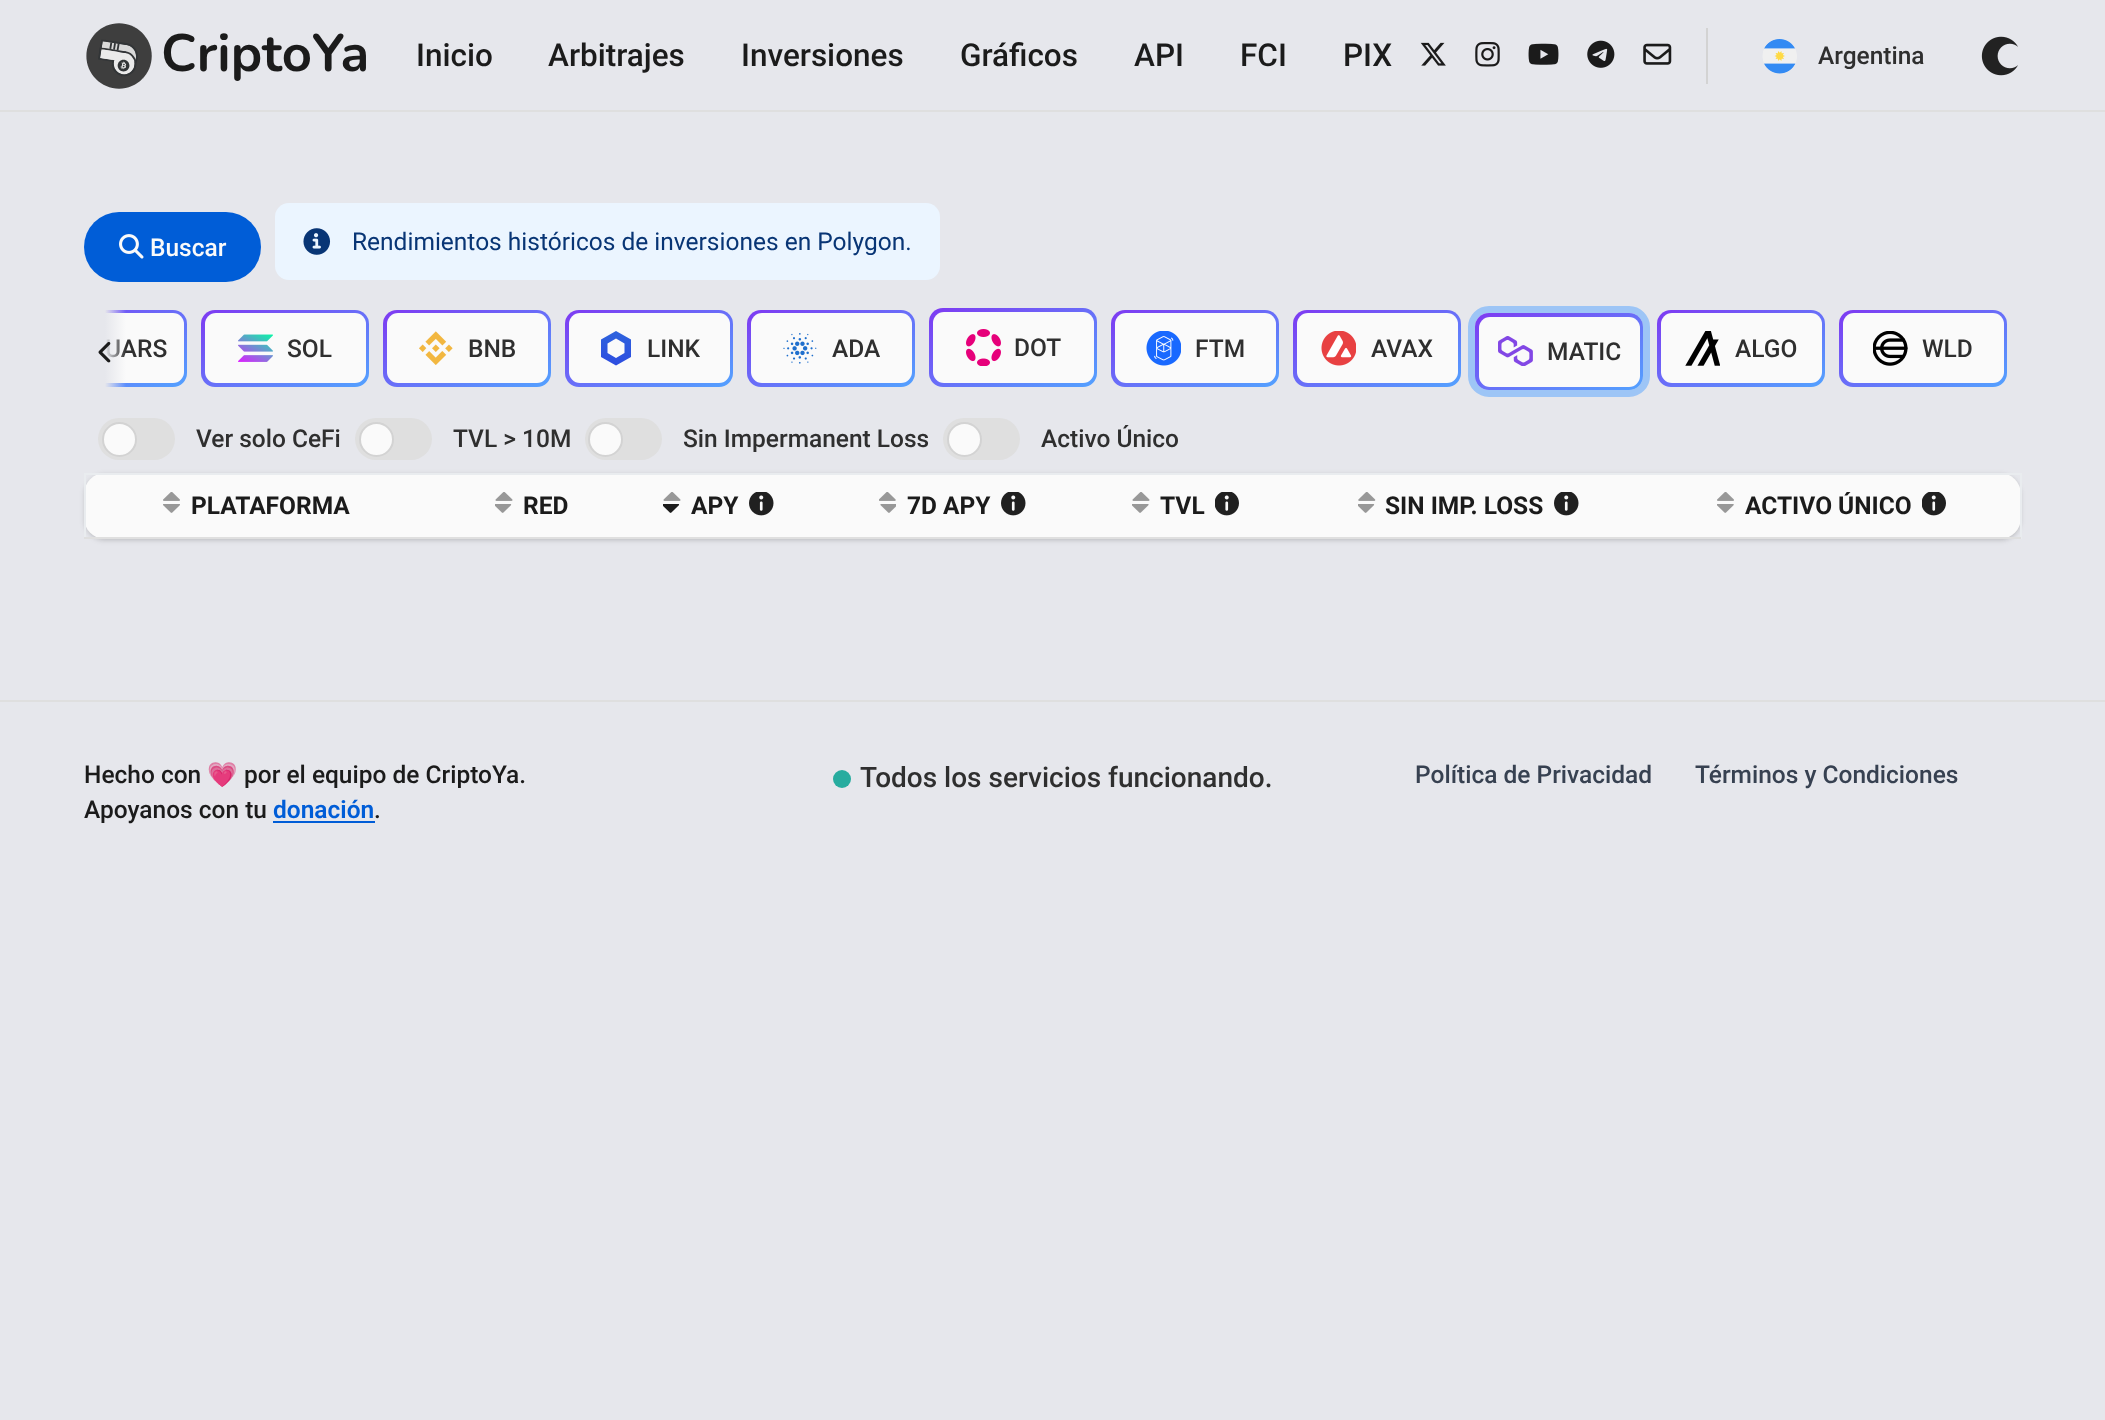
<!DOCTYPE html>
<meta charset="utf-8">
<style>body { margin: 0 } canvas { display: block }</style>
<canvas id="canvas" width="2105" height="1420"></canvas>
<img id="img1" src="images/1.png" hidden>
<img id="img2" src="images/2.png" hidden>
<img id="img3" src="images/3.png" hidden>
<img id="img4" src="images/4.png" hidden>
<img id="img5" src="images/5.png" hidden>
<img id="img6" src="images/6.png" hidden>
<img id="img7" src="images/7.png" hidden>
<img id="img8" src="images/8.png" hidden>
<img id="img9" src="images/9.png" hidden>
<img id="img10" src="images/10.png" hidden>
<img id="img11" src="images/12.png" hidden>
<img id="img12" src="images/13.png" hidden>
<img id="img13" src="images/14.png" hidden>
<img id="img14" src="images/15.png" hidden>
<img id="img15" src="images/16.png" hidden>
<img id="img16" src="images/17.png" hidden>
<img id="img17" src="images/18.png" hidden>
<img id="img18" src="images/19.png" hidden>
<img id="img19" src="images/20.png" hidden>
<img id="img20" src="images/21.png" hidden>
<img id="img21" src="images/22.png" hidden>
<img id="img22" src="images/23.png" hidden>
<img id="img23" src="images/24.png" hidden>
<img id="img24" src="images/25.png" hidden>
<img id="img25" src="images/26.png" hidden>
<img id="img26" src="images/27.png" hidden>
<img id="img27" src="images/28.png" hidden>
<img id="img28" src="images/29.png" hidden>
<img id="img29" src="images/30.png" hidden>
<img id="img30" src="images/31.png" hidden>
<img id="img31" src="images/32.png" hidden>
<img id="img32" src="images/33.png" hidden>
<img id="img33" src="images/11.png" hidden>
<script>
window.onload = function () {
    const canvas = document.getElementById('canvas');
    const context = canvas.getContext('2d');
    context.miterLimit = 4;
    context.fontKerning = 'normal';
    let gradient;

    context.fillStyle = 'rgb(230, 231, 236)';
    context.fillRect(0, 0, 2105, 1420);
    context.fillStyle = 'rgb(223, 223, 223)';
    context.fillRect(0, 110, 2105, 2);
    context.drawImage(document.getElementById('img1'), 86, 23, 66, 66);
    context.drawImage(document.getElementById('img2'), 1420, 42, 26, 24);
    context.drawImage(document.getElementById('img3'), 1475, 42, 25, 25);
    context.drawImage(document.getElementById('img4'), 1528, 43, 31, 22);
    context.drawImage(document.getElementById('img5'), 1587, 40, 28, 28);
    context.drawImage(document.getElementById('img6'), 1643, 43, 29, 22);
    context.fillStyle = 'rgb(211, 211, 211)';
    context.fillRect(1706, 28, 2, 56);
    context.drawImage(document.getElementById('img7'), 1762, 39, 35, 35);
    context.drawImage(document.getElementById('img8'), 1981, 36, 37, 40);
    context.fillStyle = 'rgb(0, 93, 215)';
    context.beginPath();
    context.roundRect(84, 212, 177, 70, 35);
    context.fill();
    context.drawImage(document.getElementById('img9'), 119, 234, 25, 25);
    context.fillStyle = 'rgb(235, 245, 255)';
    context.beginPath();
    context.roundRect(275, 203, 665, 77, 14);
    context.fill();
    context.drawImage(document.getElementById('img10'), 303, 228, 28, 27);
    gradient = context.createLinearGradient(74, 285, 132, 412);
    gradient.addColorStop(0, 'rgb(126, 58, 242)');
    gradient.addColorStop(1, 'rgb(83, 162, 255)');
    context.fillStyle = gradient;
    context.beginPath();
    context.roundRect(84, 310, 103, 77, [0, 14, 14, 0]);
    context.fill();
    context.fillStyle = 'rgb(250, 250, 250)';
    context.beginPath();
    context.roundRect(84, 313, 100, 70, [0, 11, 11, 0]);
    context.fill();
    gradient = context.createLinearGradient(256, 285, 314, 412);
    gradient.addColorStop(0, 'rgb(126, 58, 242)');
    gradient.addColorStop(1, 'rgb(83, 162, 255)');
    context.fillStyle = gradient;
    context.beginPath();
    context.roundRect(201, 310, 168, 77, 14);
    context.fill();
    context.fillStyle = 'rgb(250, 250, 250)';
    context.beginPath();
    context.roundRect(205, 313, 161, 70, 11);
    context.fill();
    context.drawImage(document.getElementById('img11'), 238, 334, 35, 28);
    gradient = context.createLinearGradient(438, 285, 496, 412);
    gradient.addColorStop(0, 'rgb(126, 58, 242)');
    gradient.addColorStop(1, 'rgb(83, 162, 255)');
    context.fillStyle = gradient;
    context.beginPath();
    context.roundRect(383, 310, 168, 77, 14);
    context.fill();
    context.fillStyle = 'rgb(250, 250, 250)';
    context.beginPath();
    context.roundRect(387, 313, 161, 70, 11);
    context.fill();
    context.drawImage(document.getElementById('img12'), 419, 331, 34, 34);
    gradient = context.createLinearGradient(620, 285, 678, 412);
    gradient.addColorStop(0, 'rgb(126, 58, 242)');
    gradient.addColorStop(1, 'rgb(83, 162, 255)');
    context.fillStyle = gradient;
    context.beginPath();
    context.roundRect(565, 310, 168, 77, 14);
    context.fill();
    context.fillStyle = 'rgb(250, 250, 250)';
    context.beginPath();
    context.roundRect(569, 313, 161, 70, 11);
    context.fill();
    gradient = context.createLinearGradient(616, 331, 616, 365);
    gradient.addColorStop(0, 'rgb(46, 99, 221)');
    gradient.addColorStop(1, 'rgb(45, 77, 224)');
    gradient.addColorStop(1, 'rgb(45, 76, 224)');
    context.fillStyle = gradient;
    context.beginPath();
    context.moveTo(616, 331);
    context.lineTo(601, 339.5);
    context.lineTo(601, 357);
    context.lineTo(616, 365.5);
    context.lineTo(631, 357);
    context.lineTo(631, 339.5);
    context.closePath();
    context.moveTo(607.5, 353);
    context.lineTo(607.5, 343.5);
    context.lineTo(616, 338.5);
    context.lineTo(624.5, 343.5);
    context.lineTo(624.5, 353);
    context.lineTo(616, 358);
    context.closePath();
    context.fill();
    gradient = context.createLinearGradient(802, 285, 860, 412);
    gradient.addColorStop(0, 'rgb(126, 58, 242)');
    gradient.addColorStop(1, 'rgb(83, 162, 255)');
    context.fillStyle = gradient;
    context.beginPath();
    context.roundRect(747, 310, 168, 77, 14);
    context.fill();
    context.fillStyle = 'rgb(250, 250, 250)';
    context.beginPath();
    context.roundRect(751, 313, 161, 70, 11);
    context.fill();
    context.drawImage(document.getElementById('img13'), 783, 333, 34, 31);
    gradient = context.createLinearGradient(983, 283, 1044, 412);
    gradient.addColorStop(0, 'rgb(126, 58, 242)');
    gradient.addColorStop(1, 'rgb(83, 162, 255)');
    context.fillStyle = gradient;
    context.beginPath();
    context.roundRect(929, 308, 168, 79, 14);
    context.fill();
    context.fillStyle = 'rgb(250, 250, 250)';
    context.beginPath();
    context.roundRect(933, 312, 161, 71, 11);
    context.fill();
    context.drawImage(document.getElementById('img14'), 966, 329, 35, 37);
    gradient = context.createLinearGradient(1166, 285, 1224, 412);
    gradient.addColorStop(0, 'rgb(126, 58, 242)');
    gradient.addColorStop(1, 'rgb(83, 162, 255)');
    context.fillStyle = gradient;
    context.beginPath();
    context.roundRect(1111, 310, 168, 77, 14);
    context.fill();
    context.fillStyle = 'rgb(250, 250, 250)';
    context.beginPath();
    context.roundRect(1115, 313, 161, 70, 11);
    context.fill();
    context.drawImage(document.getElementById('img15'), 1146, 331, 35, 35);
    gradient = context.createLinearGradient(1348, 285, 1406, 412);
    gradient.addColorStop(0, 'rgb(126, 58, 242)');
    gradient.addColorStop(1, 'rgb(83, 162, 255)');
    context.fillStyle = gradient;
    context.beginPath();
    context.roundRect(1293, 310, 168, 77, 14);
    context.fill();
    context.fillStyle = 'rgb(250, 250, 250)';
    context.beginPath();
    context.roundRect(1297, 313, 161, 70, 11);
    context.fill();
    context.drawImage(document.getElementById('img16'), 1321, 331, 35, 35);
    context.beginPath();
    context.roundRect(1471.5, 309.5, 175, 84, 17.5);
    context.strokeStyle = 'rgb(157, 197, 246)';
    context.lineWidth = 7;
    context.stroke();
    gradient = context.createLinearGradient(1530, 288, 1588, 415);
    gradient.addColorStop(0, 'rgb(126, 58, 242)');
    gradient.addColorStop(1, 'rgb(83, 162, 255)');
    context.fillStyle = gradient;
    context.beginPath();
    context.roundRect(1475, 313, 168, 77, 14);
    context.fill();
    context.fillStyle = 'rgb(250, 250, 250)';
    context.beginPath();
    context.roundRect(1479, 317, 161, 70, 11);
    context.fill();
    context.drawImage(document.getElementById('img17'), 1498, 336, 35, 30);
    gradient = context.createLinearGradient(1712, 285, 1770, 412);
    gradient.addColorStop(0, 'rgb(126, 58, 242)');
    gradient.addColorStop(1, 'rgb(83, 162, 255)');
    context.fillStyle = gradient;
    context.beginPath();
    context.roundRect(1657, 310, 168, 77, 14);
    context.fill();
    context.fillStyle = 'rgb(250, 250, 250)';
    context.beginPath();
    context.roundRect(1661, 313, 161, 70, 11);
    context.fill();
    context.drawImage(document.getElementById('img18'), 1685, 331, 35, 35);
    gradient = context.createLinearGradient(1894, 285, 1952, 412);
    gradient.addColorStop(0, 'rgb(126, 58, 242)');
    gradient.addColorStop(1, 'rgb(83, 162, 255)');
    context.fillStyle = gradient;
    context.beginPath();
    context.roundRect(1839, 310, 168, 77, 14);
    context.fill();
    context.fillStyle = 'rgb(250, 250, 250)';
    context.beginPath();
    context.roundRect(1843, 313, 161, 70, 11);
    context.fill();
    context.drawImage(document.getElementById('img19'), 1873, 331, 35, 35);
    context.fillStyle = 'rgb(223, 223, 223)';
    context.beginPath();
    context.roundRect(98, 418, 77, 42, 21);
    context.fill();
    context.fillStyle = 'rgb(250, 250, 250)';
    context.beginPath();
    context.arc(119.5, 439.5, 16.5, 0, 2 * Math.PI);
    context.fill();
    context.strokeStyle = 'rgb(211, 211, 211)';
    context.lineWidth = 2;
    context.stroke();
    context.fillStyle = 'rgb(223, 223, 223)';
    context.beginPath();
    context.roundRect(355, 418, 77, 42, 21);
    context.fill();
    context.fillStyle = 'rgb(250, 250, 250)';
    context.beginPath();
    context.arc(376.5, 439.5, 16.5, 0, 2 * Math.PI);
    context.fill();
    context.stroke();
    context.fillStyle = 'rgb(223, 223, 223)';
    context.beginPath();
    context.roundRect(585, 418, 77, 42, 21);
    context.fill();
    context.fillStyle = 'rgb(250, 250, 250)';
    context.beginPath();
    context.arc(605.5, 439.5, 16.5, 0, 2 * Math.PI);
    context.fill();
    context.stroke();
    context.fillStyle = 'rgb(223, 223, 223)';
    context.beginPath();
    context.roundRect(943, 418, 77, 42, 21);
    context.fill();
    context.fillStyle = 'rgb(250, 250, 250)';
    context.beginPath();
    context.arc(964.5, 439.5, 16.5, 0, 2 * Math.PI);
    context.fill();
    context.stroke();
    context.fillStyle = 'rgba(0, 0, 0, 0.1)';
    context.filter = 'blur(2px)';
    context.beginPath();
    context.roundRect(86, 476, 1934, 63, 19);
    context.fill();
    context.filter = 'none';
    context.filter = 'blur(2.5px)';
    context.beginPath();
    context.roundRect(84, 474, 1937, 67, 21);
    context.fill();
    context.filter = 'none';
    context.fillStyle = 'rgb(250, 250, 250)';
    context.beginPath();
    context.roundRect(84, 473, 1937, 66, 21);
    context.fill();
    context.fillStyle = 'rgb(233, 236, 239)';
    context.fillRect(84, 473, 1937, 2);
    context.fillRect(2020, 473, 2, 66);
    context.fillRect(84, 473, 2, 66);
    context.fillStyle = 'rgb(223, 223, 223)';
    context.fillRect(84, 537, 1937, 2);
    context.drawImage(document.getElementById('img20'), 163, 492, 17, 9);
    context.drawImage(document.getElementById('img21'), 163, 504, 17, 9);
    context.drawImage(document.getElementById('img22'), 495, 492, 18, 9);
    context.drawImage(document.getElementById('img23'), 495, 504, 17, 9);
    context.drawImage(document.getElementById('img22'), 663, 492, 18, 9);
    context.drawImage(document.getElementById('img24'), 663, 504, 17, 9);
    context.drawImage(document.getElementById('img25'), 749, 492, 25, 24);
    context.drawImage(document.getElementById('img26'), 879, 492, 17, 9);
    context.drawImage(document.getElementById('img27'), 880, 504, 16, 9);
    context.drawImage(document.getElementById('img25'), 1001, 492, 25, 24);
    context.drawImage(document.getElementById('img22'), 1132, 492, 18, 9);
    context.drawImage(document.getElementById('img28'), 1132, 504, 17, 9);
    context.drawImage(document.getElementById('img29'), 1215, 492, 24, 24);
    context.drawImage(document.getElementById('img30'), 1358, 492, 18, 9);
    context.drawImage(document.getElementById('img31'), 1358, 504, 17, 9);
    context.drawImage(document.getElementById('img25'), 1554, 492, 25, 24);
    context.drawImage(document.getElementById('img20'), 1717, 492, 17, 9);
    context.drawImage(document.getElementById('img32'), 1717, 504, 17, 9);
    context.drawImage(document.getElementById('img29'), 1922, 492, 24, 24);
    context.fillRect(0, 700, 2105, 2);
    context.fillStyle = 'rgb(0, 93, 215)';
    context.fillRect(273, 821, 102, 2);
    context.fillStyle = 'rgb(39, 172, 159)';
    context.beginPath();
    context.arc(842, 779, 9, 0, 2 * Math.PI);
    context.fill();
    context.font = 'bold 52.5px Nunito';
    context.fillStyle = 'rgb(27, 27, 27)';
    context.fillText('CriptoYa', 161, 71);
    context.font = '500 31.5px Roboto';
    context.fillText('Inicio', 416, 66);
    context.fillText('Arbitrajes', 548, 66);
    context.fillText('Inversiones', 741, 66);
    context.fillText('Gráficos', 960, 66);
    context.fillText('API', 1134, 66);
    context.fillText('FCI', 1240, 66);
    context.fillText('PIX', 1343, 66);
    context.font = '500 24.5px Roboto';
    context.fillStyle = 'rgb(47, 47, 47)';
    context.fillText('Argentina', 1818, 64);
    context.fillStyle = 'rgb(250, 250, 250)';
    context.fillText('Buscar', 150, 256);
    context.font = '24.5px Roboto';
    context.fillStyle = 'rgb(8, 53, 117)';
    context.fillText('Rendimientos históricos de inversiones en Polygon.', 352, 250);
    context.font = '500 24.5px Roboto';
    context.fillStyle = 'rgb(47, 47, 47)';
    context.fillText('UARS', 105, 357);
    gradient = context.createLinearGradient(84, 353, 126, 353);
    gradient.addColorStop(0, 'rgb(230, 231, 236)');
    gradient.addColorStop(0.5, 'rgb(230, 231, 236)');
    gradient.addColorStop(1, 'rgba(230, 231, 236, 0)');
    context.fillStyle = gradient;
    context.fillRect(84, 310, 42, 77);
    context.drawImage(document.getElementById('img33'), 98, 342, 13, 21);
    context.fillStyle = 'rgb(47, 47, 47)';
    context.fillText('SOL', 287, 357);
    context.fillText('BNB', 468, 357);
    context.fillText('LINK', 647, 357);
    context.fillText('ADA', 832, 357);
    context.fillText('DOT', 1014, 356);
    context.fillText('FTM', 1195, 357);
    context.fillText('AVAX', 1371, 357);
    context.fillText('MATIC', 1547, 360);
    context.fillText('ALGO', 1735, 357);
    context.fillText('WLD', 1922, 357);
    context.fillText('Ver solo CeFi', 196, 447);
    context.fillText('TVL > 10M', 453, 447);
    context.fillText('Sin Impermanent Loss', 683, 447);
    context.fillText('Activo Único', 1041, 447);
    context.font = 'bold 24.5px Roboto';
    context.fillStyle = 'rgb(27, 27, 27)';
    context.fillText('PLATAFORMA', 191, 514);
    context.fillText('RED', 523, 514);
    context.fillText('APY', 691, 514);
    context.fillText('7D APY', 907, 514);
    context.fillText('TVL', 1160, 514);
    context.fillText('SIN IMP. LOSS', 1385, 514);
    context.fillText('ACTIVO ÚNICO', 1745, 514);
    context.font = '500 24.5px Roboto';
    context.fillText('Hecho con', 84, 783);
    context.font = '24.5px Noto Color Emoji';
    context.fillText('💗', 207, 783);
    context.font = '500 24.5px Roboto';
    context.fillText('por el equipo de CriptoYa.', 244, 783);
    context.fillText('Apoyanos con tu', 84, 818);
    context.font = '600 24.5px Roboto';
    context.fillStyle = 'rgb(0, 93, 215)';
    context.fillText('donación', 273, 818);
    context.font = '500 24.5px Roboto';
    context.fillStyle = 'rgb(27, 27, 27)';
    context.fillText('.', 374, 818);
    context.font = '500 28px Roboto';
    context.fillStyle = 'rgb(47, 47, 47)';
    context.fillText('Todos los servicios funcionando.', 860, 787);
    context.font = '500 24.5px Roboto';
    context.fillStyle = 'rgb(55, 65, 81)';
    context.fillText('Política de Privacidad', 1415, 783);
    context.fillText('Términos y Condiciones', 1695, 783);
};
</script>
